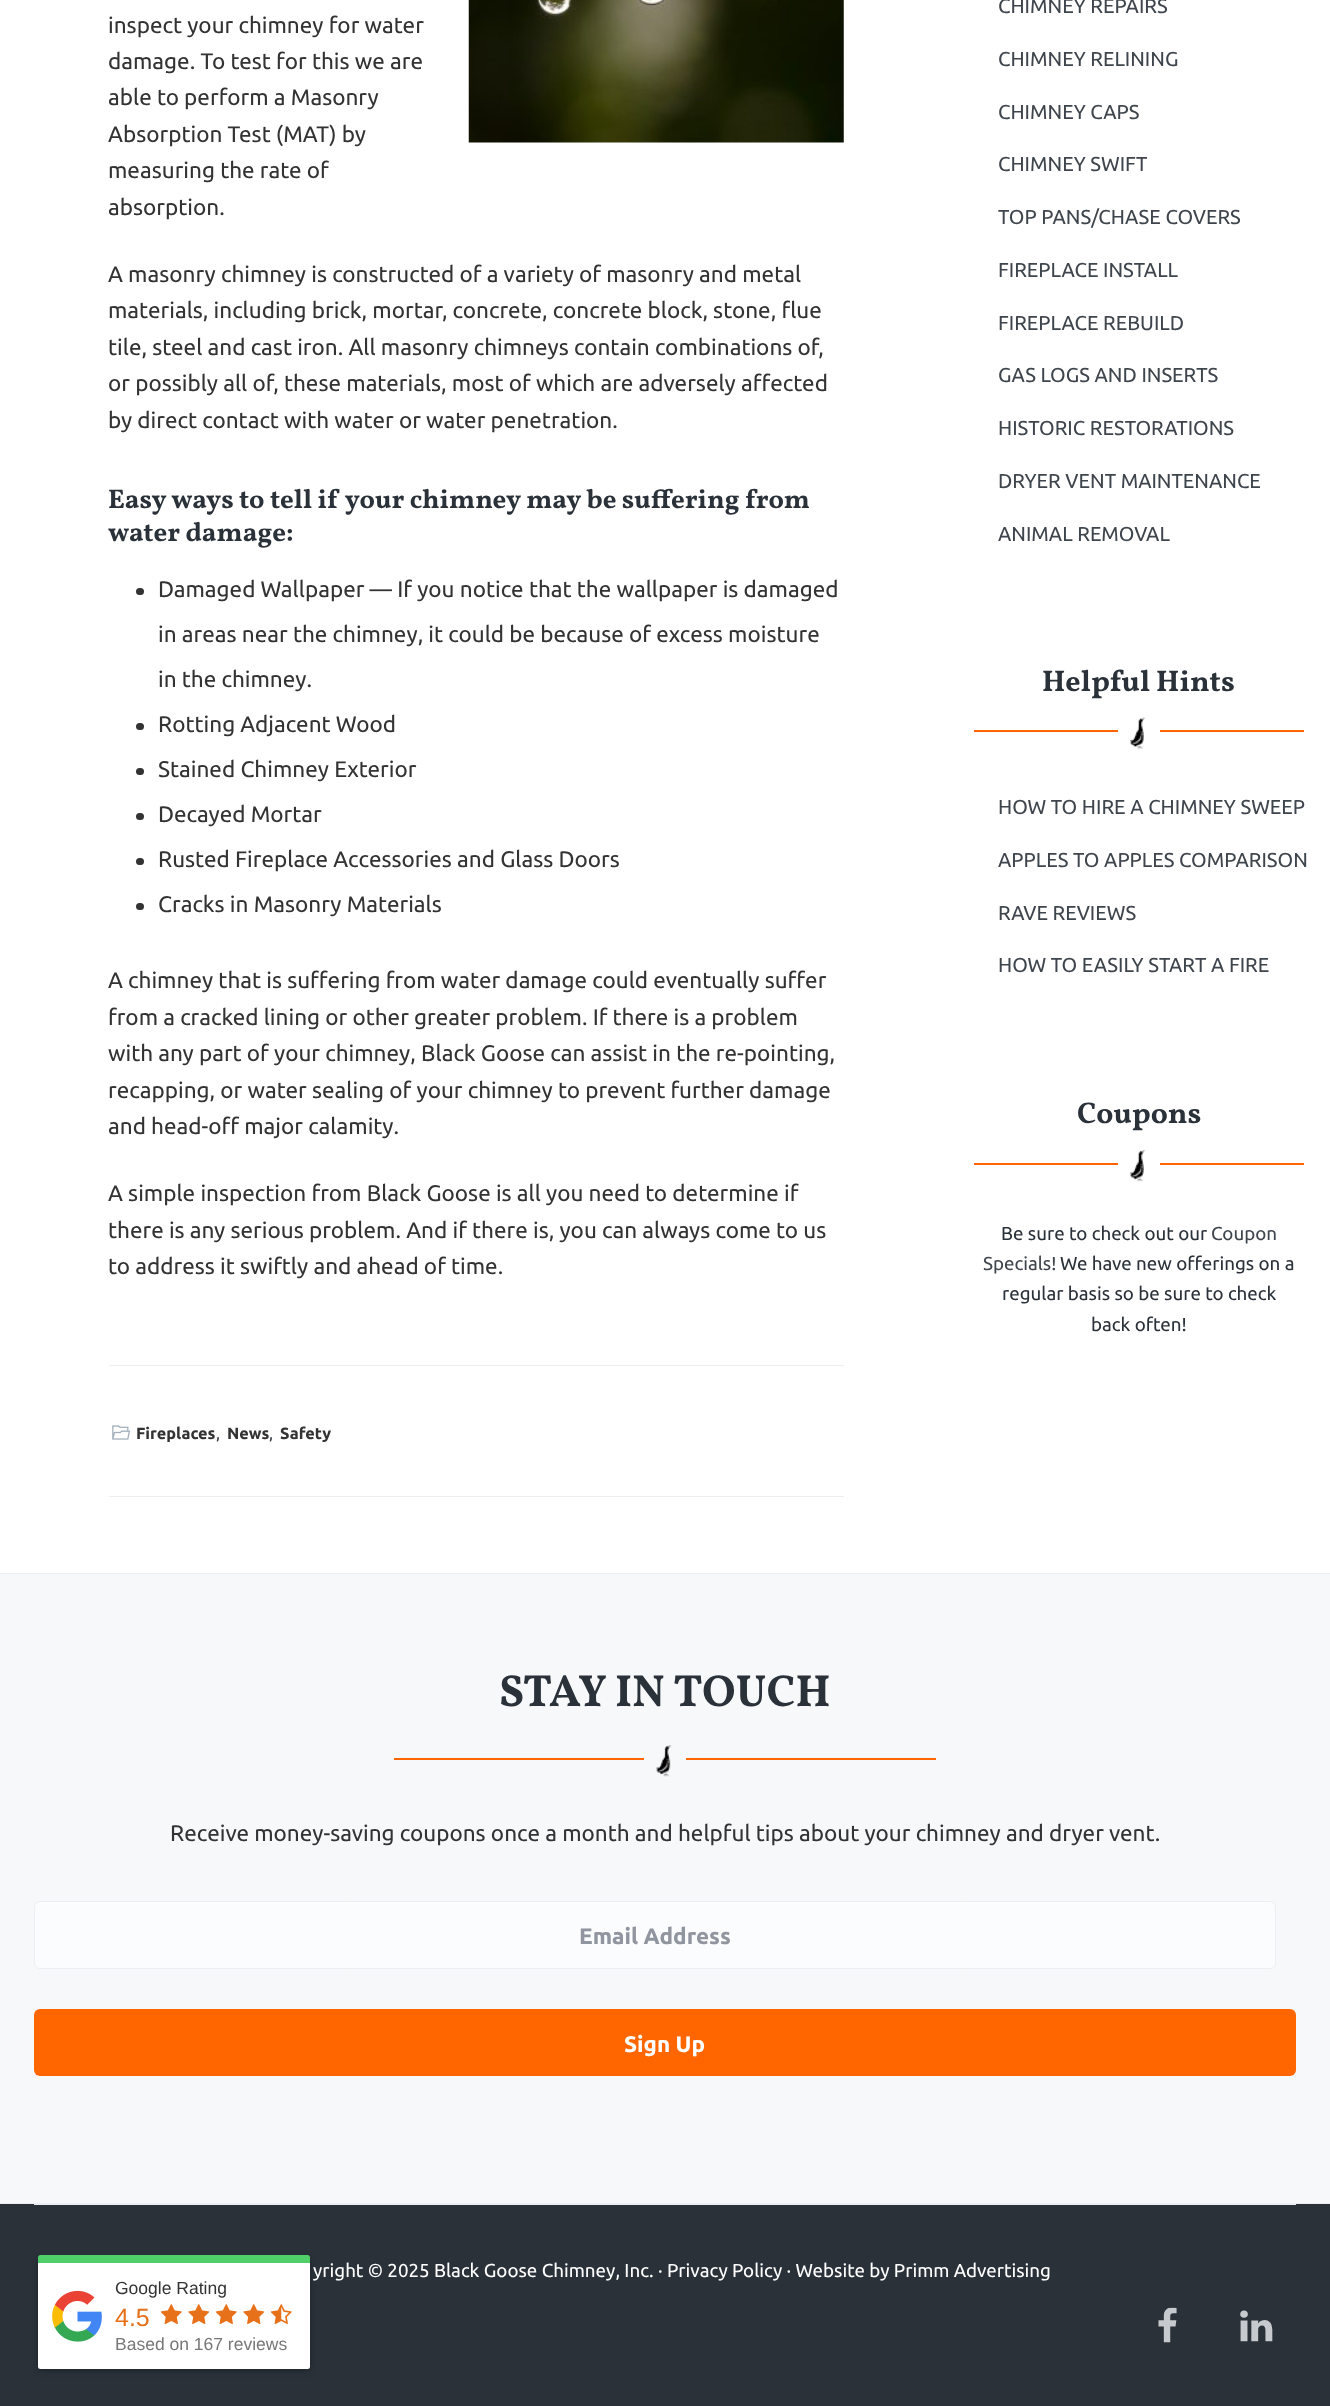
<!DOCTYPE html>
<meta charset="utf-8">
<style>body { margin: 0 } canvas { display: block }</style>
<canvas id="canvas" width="1330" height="2406"></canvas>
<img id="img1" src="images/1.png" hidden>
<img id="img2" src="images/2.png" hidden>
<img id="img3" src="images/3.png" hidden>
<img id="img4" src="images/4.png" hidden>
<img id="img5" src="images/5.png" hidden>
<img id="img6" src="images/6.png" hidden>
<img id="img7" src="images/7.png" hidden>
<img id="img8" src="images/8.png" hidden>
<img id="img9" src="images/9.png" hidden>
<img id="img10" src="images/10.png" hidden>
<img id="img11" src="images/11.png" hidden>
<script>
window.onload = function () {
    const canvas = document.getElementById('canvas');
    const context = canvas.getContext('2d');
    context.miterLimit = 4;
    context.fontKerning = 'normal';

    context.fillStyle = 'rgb(255, 255, 255)';
    context.fillRect(0, 0, 1330, 2406);
    context.drawImage(document.getElementById('img1'), 468, 0, 376, 143);
    context.fillStyle = 'rgb(51, 51, 51)';
    context.beginPath();
    context.roundRect(136, 588, 8, 7, 3.5);
    context.fill();
    context.beginPath();
    context.roundRect(136, 723, 8, 7, 3.5);
    context.fill();
    context.beginPath();
    context.roundRect(136, 768, 8, 7, 3.5);
    context.fill();
    context.beginPath();
    context.roundRect(136, 813, 8, 7, 3.5);
    context.fill();
    context.beginPath();
    context.roundRect(136, 858, 8, 7, 3.5);
    context.fill();
    context.beginPath();
    context.roundRect(136, 903, 8, 7, 3.5);
    context.fill();
    context.fillStyle = 'rgb(236, 238, 241)';
    context.fillRect(109, 1365, 735, 1);
    context.fillRect(109, 1496, 735, 1);
    context.drawImage(document.getElementById('img2'), 112, 1425, 19, 15);
    context.drawImage(document.getElementById('img3'), 1130, 717, 16, 32);
    context.fillStyle = 'rgb(255, 102, 0)';
    context.fillRect(974, 730, 144, 2);
    context.fillRect(1160, 730, 144, 2);
    context.drawImage(document.getElementById('img4'), 1130, 1150, 16, 32);
    context.fillRect(974, 1163, 144, 2);
    context.fillRect(1160, 1163, 144, 2);
    context.fillStyle = 'rgb(236, 238, 241)';
    context.fillRect(0, 1573, 1330, 1);
    context.fillStyle = 'rgb(246, 248, 250)';
    context.fillRect(0, 1574, 1330, 629);
    context.fillStyle = 'rgb(236, 238, 241)';
    context.fillRect(0, 2203, 1330, 1);
    context.drawImage(document.getElementById('img5'), 656, 1745, 16, 32);
    context.fillStyle = 'rgb(255, 102, 0)';
    context.fillRect(394, 1758, 250, 2);
    context.fillRect(686, 1758, 250, 2);
    context.fillStyle = 'rgb(251, 252, 253)';
    context.beginPath();
    context.roundRect(34.5, 1901.5, 1241, 67, 5.5);
    context.fill();
    context.strokeStyle = 'rgb(236, 238, 241)';
    context.stroke();
    context.fillStyle = 'rgb(255, 102, 0)';
    context.beginPath();
    context.roundRect(34, 2009, 1262, 67, 6);
    context.fill();
    context.fillStyle = 'rgb(42, 49, 57)';
    context.fillRect(0, 2204, 1330, 202);
    context.fillStyle = 'rgb(236, 238, 241)';
    context.fillRect(34, 2204, 1262, 1);
    context.drawImage(document.getElementById('img6'), 1158, 2307, 19, 36);
    context.drawImage(document.getElementById('img7'), 1240, 2310, 33, 32);
    context.fillStyle = 'rgba(0, 0, 0, 0.26)';
    context.filter = 'blur(3px)';
    context.beginPath();
    context.roundRect(38, 2258, 272, 113, 2.5);
    context.fill();
    context.filter = 'none';
    context.fillStyle = 'rgb(79, 206, 106)';
    context.beginPath();
    context.roundRect(38, 2255, 272, 8, [2.5, 2.5, 0, 0]);
    context.fill();
    context.fillStyle = 'rgb(255, 255, 255)';
    context.beginPath();
    context.roundRect(38, 2263, 272, 106, [0, 0, 2.5, 2.5]);
    context.fill();
    context.drawImage(document.getElementById('img8'), 52, 2290, 50, 52);
    context.drawImage(document.getElementById('img9'), 160, 2304, 22, 20);
    context.drawImage(document.getElementById('img10'), 188, 2304, 22, 20);
    context.drawImage(document.getElementById('img9'), 215, 2304, 22, 20);
    context.drawImage(document.getElementById('img10'), 243, 2304, 22, 20);
    context.drawImage(document.getElementById('img11'), 270, 2304, 22, 20);
    context.font = '22.5px Ubuntu';
    context.fillStyle = 'rgb(51, 51, 51)';
    context.fillText('inspect your chimney for water', 108, 33);
    context.fillText('damage. To test for this we are', 108, 69);
    context.fillText('able to perform a Masonry', 108, 105);
    context.fillText('Absorption Test (MAT) by', 108, 142);
    context.fillText('measuring the rate of', 108, 178);
    context.fillText('absorption.', 108, 215);
    context.fillText('A masonry chimney is constructed of a variety of masonry and metal', 108, 282);
    context.fillText('materials, including brick, mortar, concrete, concrete block, stone, flue', 108, 318);
    context.fillText('tile, steel and cast iron. All masonry chimneys contain combinations of,', 108, 355);
    context.fillText('or possibly all of, these materials, most of which are adversely affected', 108, 391);
    context.fillText('by direct contact with water or water penetration.', 108, 428);
    context.font = 'bold 27px Vollkorn';
    context.fillStyle = 'rgb(42, 49, 57)';
    context.fillText('Easy ways to tell if your chimney may be suffering from', 108, 508);
    context.fillText('water damage:', 108, 541);
    context.font = '22.5px Ubuntu';
    context.fillStyle = 'rgb(51, 51, 51)';
    context.fillText('Damaged Wallpaper — If you notice that the wallpaper is damaged', 158, 597);
    context.fillText('in areas near the chimney, it could be because of excess moisture', 158, 642);
    context.fillText('in the chimney.', 158, 687);
    context.fillText('Rotting Adjacent Wood', 158, 732);
    context.fillText('Stained Chimney Exterior', 158, 777);
    context.fillText('Decayed Mortar', 158, 822);
    context.fillText('Rusted Fireplace Accessories and Glass Doors', 158, 867);
    context.fillText('Cracks in Masonry Materials', 158, 912);
    context.fillText('A chimney that is suffering from water damage could eventually suffer', 108, 988);
    context.fillText('from a cracked lining or other greater problem. If there is a problem', 108, 1025);
    context.fillText('with any part of your chimney, Black Goose can assist in the re-pointing,', 108, 1061);
    context.fillText('recapping, or water sealing of your chimney to prevent further damage', 108, 1098);
    context.fillText('and head-off major calamity.', 108, 1134);
    context.fillText('A simple inspection from Black Goose is all you need to determine if', 108, 1201);
    context.fillText('there is any serious problem. And if there is, you can always come to us', 108, 1238);
    context.fillText('to address it swiftly and ahead of time.', 108, 1274);
    context.font = 'bold 16.25px Ubuntu';
    context.fillText('Fireplaces', 136, 1439);
    context.font = '16.25px Ubuntu';
    context.fillStyle = 'rgb(42, 49, 57)';
    context.fillText(',', 216, 1439);
    context.font = 'bold 16.25px Ubuntu';
    context.fillStyle = 'rgb(51, 51, 51)';
    context.fillText('News', 227, 1439);
    context.font = '16.25px Ubuntu';
    context.fillStyle = 'rgb(42, 49, 57)';
    context.fillText(',', 269, 1439);
    context.font = 'bold 16.25px Ubuntu';
    context.fillStyle = 'rgb(51, 51, 51)';
    context.fillText('Safety', 280, 1439);
    context.font = '20.1px Ubuntu';
    context.fillStyle = 'rgb(63, 69, 76)';
    context.fillText('CHIMNEY REPAIRS', 998, 13);
    context.fillText('CHIMNEY RELINING', 998, 66);
    context.fillText('CHIMNEY CAPS', 998, 119);
    context.fillText('CHIMNEY SWIFT', 998, 171);
    context.fillText('TOP PANS/CHASE COVERS', 998, 224);
    context.fillText('FIREPLACE INSTALL', 998, 277);
    context.fillText('FIREPLACE REBUILD', 998, 330);
    context.fillText('GAS LOGS AND INSERTS', 998, 382);
    context.fillText('HISTORIC RESTORATIONS', 998, 435);
    context.fillText('DRYER VENT MAINTENANCE', 998, 488);
    context.fillText('ANIMAL REMOVAL', 998, 541);
    context.font = 'bold 30px Vollkorn';
    context.fillStyle = 'rgb(42, 49, 57)';
    context.fillText('Helpful Hints', 1042, 691);
    context.font = '20.1px Ubuntu';
    context.fillStyle = 'rgb(63, 69, 76)';
    context.fillText('HOW TO HIRE A CHIMNEY SWEEP', 998, 814);
    context.fillText('APPLES TO APPLES COMPARISON', 998, 867);
    context.fillText('RAVE REVIEWS', 998, 920);
    context.fillText('HOW TO EASILY START A FIRE', 998, 972);
    context.font = 'bold 30px Vollkorn';
    context.fillStyle = 'rgb(42, 49, 57)';
    context.fillText('Coupons', 1077, 1123);
    context.font = '18.75px Ubuntu';
    context.fillText('Be sure to check out our', 1001, 1240);
    context.fillStyle = 'rgb(63, 69, 76)';
    context.fillText('Coupon', 1211, 1240);
    context.fillText('Specials!', 983, 1270);
    context.fillStyle = 'rgb(42, 49, 57)';
    context.fillText('We have new offerings on a', 1060, 1270);
    context.fillText('regular basis so be sure to check', 1002, 1300);
    context.fillText('back often!', 1091, 1331);
    context.font = 'bold 45px Vollkorn';
    context.fillText('STAY IN TOUCH', 499, 1706);
    context.font = '22.5px Ubuntu';
    context.fillStyle = 'rgb(51, 51, 51)';
    context.fillText('Receive money-saving coupons once a month and helpful tips about your chimney and dryer vent.', 170, 1841);
    context.font = 'bold 22.5px Ubuntu';
    context.fillStyle = 'rgb(144, 149, 159)';
    context.fillText('Email Address', 579, 1944);
    context.fillStyle = 'rgb(255, 255, 255)';
    context.fillText('Sign Up', 624, 2052);
    context.font = '18.75px Ubuntu';
    context.fillText('yright © 2025 Black Goose Chimney, Inc. · Privacy Policy · Website by Primm Advertising', 313, 2277);
    context.font = '17.5px Liberation Sans';
    context.fillStyle = 'rgb(51, 51, 51)';
    context.fillText('Google Rating', 115, 2294);
    context.font = '25px Liberation Sans';
    context.fillStyle = 'rgb(231, 113, 27)';
    context.fillText('4.5', 115, 2326);
    context.font = '17.5px Liberation Sans';
    context.fillStyle = 'rgb(119, 119, 119)';
    context.fillText('Based on 167 reviews', 115, 2350);
};
</script>
